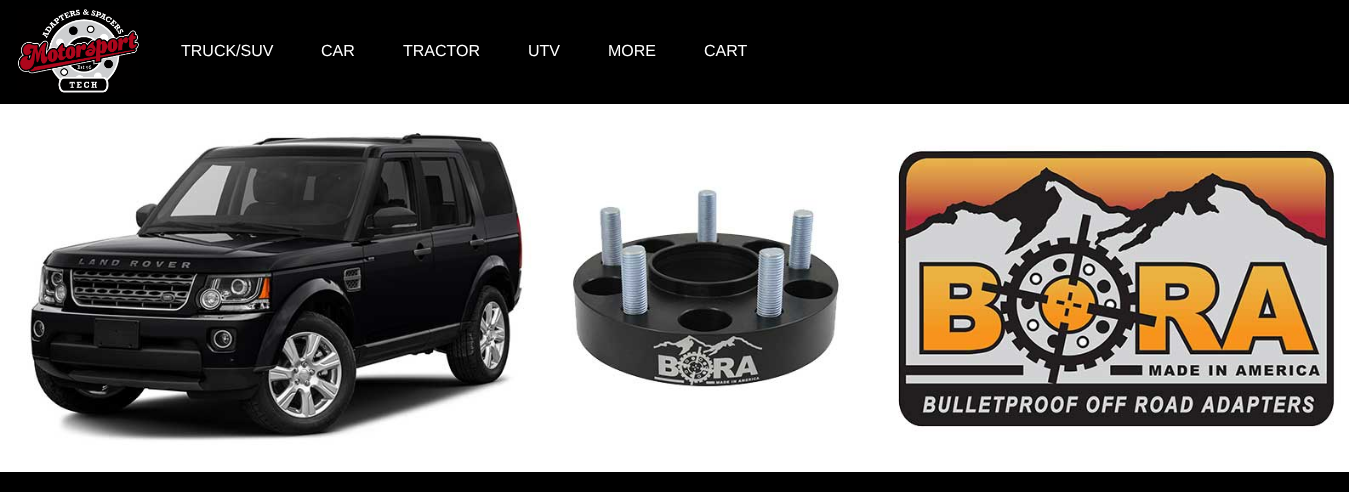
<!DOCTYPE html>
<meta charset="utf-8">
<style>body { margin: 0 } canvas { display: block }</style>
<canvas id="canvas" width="1349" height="492"></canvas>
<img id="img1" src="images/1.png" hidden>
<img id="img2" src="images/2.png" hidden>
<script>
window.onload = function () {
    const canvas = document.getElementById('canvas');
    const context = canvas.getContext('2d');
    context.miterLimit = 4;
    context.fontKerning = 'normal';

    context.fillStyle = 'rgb(255, 255, 255)';
    context.fillRect(0, 0, 1349, 492);
    context.fillStyle = 'rgb(0, 0, 0)';
    context.fillRect(0, 0, 1349, 104);
    context.drawImage(document.getElementById('img1'), 17, 9, 122, 84);
    context.drawImage(document.getElementById('img2'), 0, 132, 1349, 340);
    context.fillRect(0, 472, 1349, 20);
    context.font = '16px Liberation Sans';
    context.fillStyle = 'rgb(255, 255, 255)';
    context.fillText('TRUCK/SUV', 181, 56);
    context.fillText('CAR', 321, 56);
    context.fillText('TRACTOR', 403, 56);
    context.fillText('UTV', 528, 56);
    context.fillText('MORE', 608, 56);
    context.fillText('CART', 704, 56);
};
</script>
